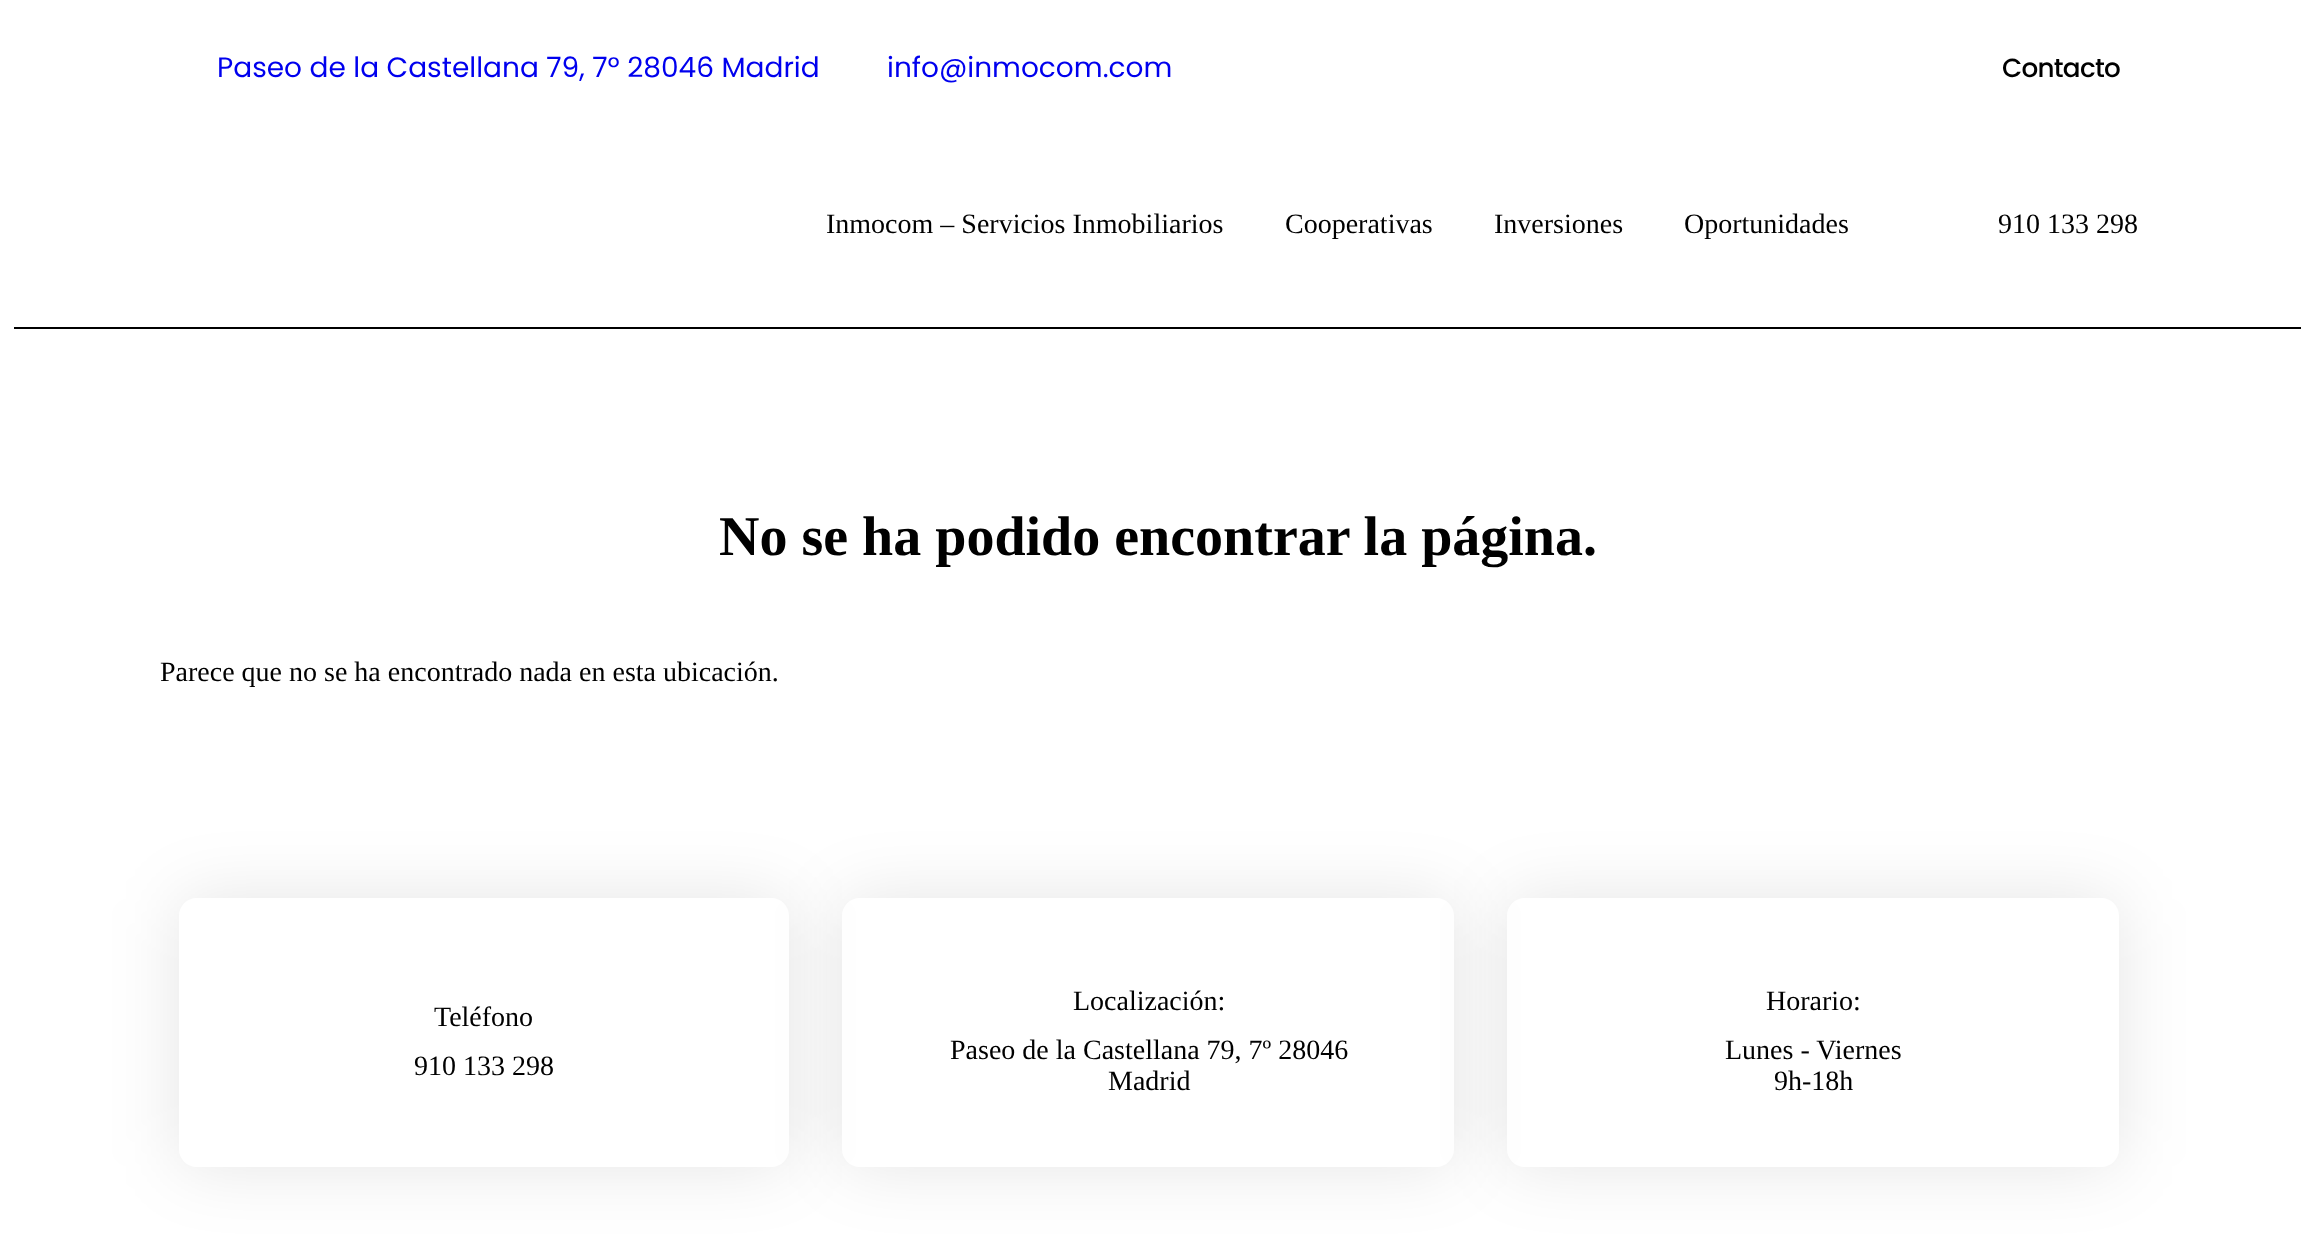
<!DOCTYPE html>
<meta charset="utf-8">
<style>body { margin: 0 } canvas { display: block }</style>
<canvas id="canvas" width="2314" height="1235"></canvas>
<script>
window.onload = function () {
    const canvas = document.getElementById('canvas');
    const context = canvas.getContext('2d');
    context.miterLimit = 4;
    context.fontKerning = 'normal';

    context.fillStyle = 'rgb(255, 255, 255)';
    context.fillRect(0, 0, 2314, 1235);
    context.fillStyle = 'rgb(0, 0, 0)';
    context.fillRect(14, 327, 2287, 2);
    context.save();
    context.beginPath();
    context.moveTo(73, 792);
    context.lineTo(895, 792);
    context.lineTo(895, 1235);
    context.lineTo(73, 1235);
    context.closePath();
    context.moveTo(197, 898);
    context.lineTo(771, 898);
    context.bezierCurveTo(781, 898, 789, 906, 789, 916);
    context.lineTo(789, 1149);
    context.bezierCurveTo(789, 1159, 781, 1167, 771, 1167);
    context.lineTo(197, 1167);
    context.bezierCurveTo(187, 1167, 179, 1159, 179, 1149);
    context.lineTo(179, 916);
    context.bezierCurveTo(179, 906, 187, 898, 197, 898);
    context.closePath();
    context.clip('evenodd');
    context.fillStyle = 'rgba(0, 0, 0, 0.1)';
    context.filter = 'blur(35px)';
    context.beginPath();
    context.roundRect(179, 898, 610, 269, 18);
    context.fill();
    context.filter = 'none';
    context.restore();
    context.save();
    context.beginPath();
    context.moveTo(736, 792);
    context.lineTo(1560, 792);
    context.lineTo(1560, 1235);
    context.lineTo(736, 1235);
    context.closePath();
    context.moveTo(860, 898);
    context.lineTo(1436, 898);
    context.bezierCurveTo(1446, 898, 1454, 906, 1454, 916);
    context.lineTo(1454, 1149);
    context.bezierCurveTo(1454, 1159, 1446, 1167, 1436, 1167);
    context.lineTo(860, 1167);
    context.bezierCurveTo(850, 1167, 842, 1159, 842, 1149);
    context.lineTo(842, 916);
    context.bezierCurveTo(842, 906, 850, 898, 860, 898);
    context.closePath();
    context.clip('evenodd');
    context.fillStyle = 'rgba(0, 0, 0, 0.1)';
    context.filter = 'blur(35px)';
    context.beginPath();
    context.roundRect(842, 898, 612, 269, 18);
    context.fill();
    context.filter = 'none';
    context.restore();
    context.save();
    context.beginPath();
    context.moveTo(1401, 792);
    context.lineTo(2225, 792);
    context.lineTo(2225, 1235);
    context.lineTo(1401, 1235);
    context.closePath();
    context.moveTo(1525, 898);
    context.lineTo(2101, 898);
    context.bezierCurveTo(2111, 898, 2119, 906, 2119, 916);
    context.lineTo(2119, 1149);
    context.bezierCurveTo(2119, 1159, 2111, 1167, 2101, 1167);
    context.lineTo(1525, 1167);
    context.bezierCurveTo(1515, 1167, 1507, 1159, 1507, 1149);
    context.lineTo(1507, 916);
    context.bezierCurveTo(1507, 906, 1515, 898, 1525, 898);
    context.closePath();
    context.clip('evenodd');
    context.fillStyle = 'rgba(0, 0, 0, 0.1)';
    context.filter = 'blur(35px)';
    context.beginPath();
    context.roundRect(1507, 898, 612, 269, 18);
    context.fill();
    context.filter = 'none';
    context.restore();
    context.font = '28px Poppins';
    context.fillStyle = 'rgb(0, 0, 238)';
    context.fillText('Paseo de la Castellana 79, 7º 28046 Madrid', 217, 77);
    context.fillText('info@inmocom.com', 887, 77);
    context.letterSpacing = '-0.75px';
    context.font = '500 26.25px Poppins';
    context.fillStyle = 'rgb(0, 0, 0)';
    context.fillText('Contacto', 2002, 77);
    context.letterSpacing = '0px';
    context.font = '28px Liberation Serif';
    context.fillText('Inmocom – Servicios Inmobiliarios', 826, 233);
    context.fillText('Cooperativas', 1285, 233);
    context.fillText('Inversiones', 1494, 233);
    context.fillText('Oportunidades', 1684, 233);
    context.fillText('910 133 298', 1998, 233);
    context.font = 'bold 56px Liberation Serif';
    context.fillText('No se ha podido encontrar la página.', 719, 555);
    context.font = '28px Liberation Serif';
    context.fillText('Parece que no se ha encontrado nada en esta ubicación.', 160, 681);
    context.fillText('Teléfono', 434, 1026);
    context.fillText('910 133 298', 414, 1075);
    context.fillText('Localización:', 1073, 1010);
    context.fillText('Paseo de la Castellana 79, 7º 28046', 950, 1059);
    context.fillText('Madrid', 1108, 1090);
    context.fillText('Horario:', 1766, 1010);
    context.fillText('Lunes - Viernes', 1725, 1059);
    context.fillText('9h-18h', 1774, 1090);
};
</script>
